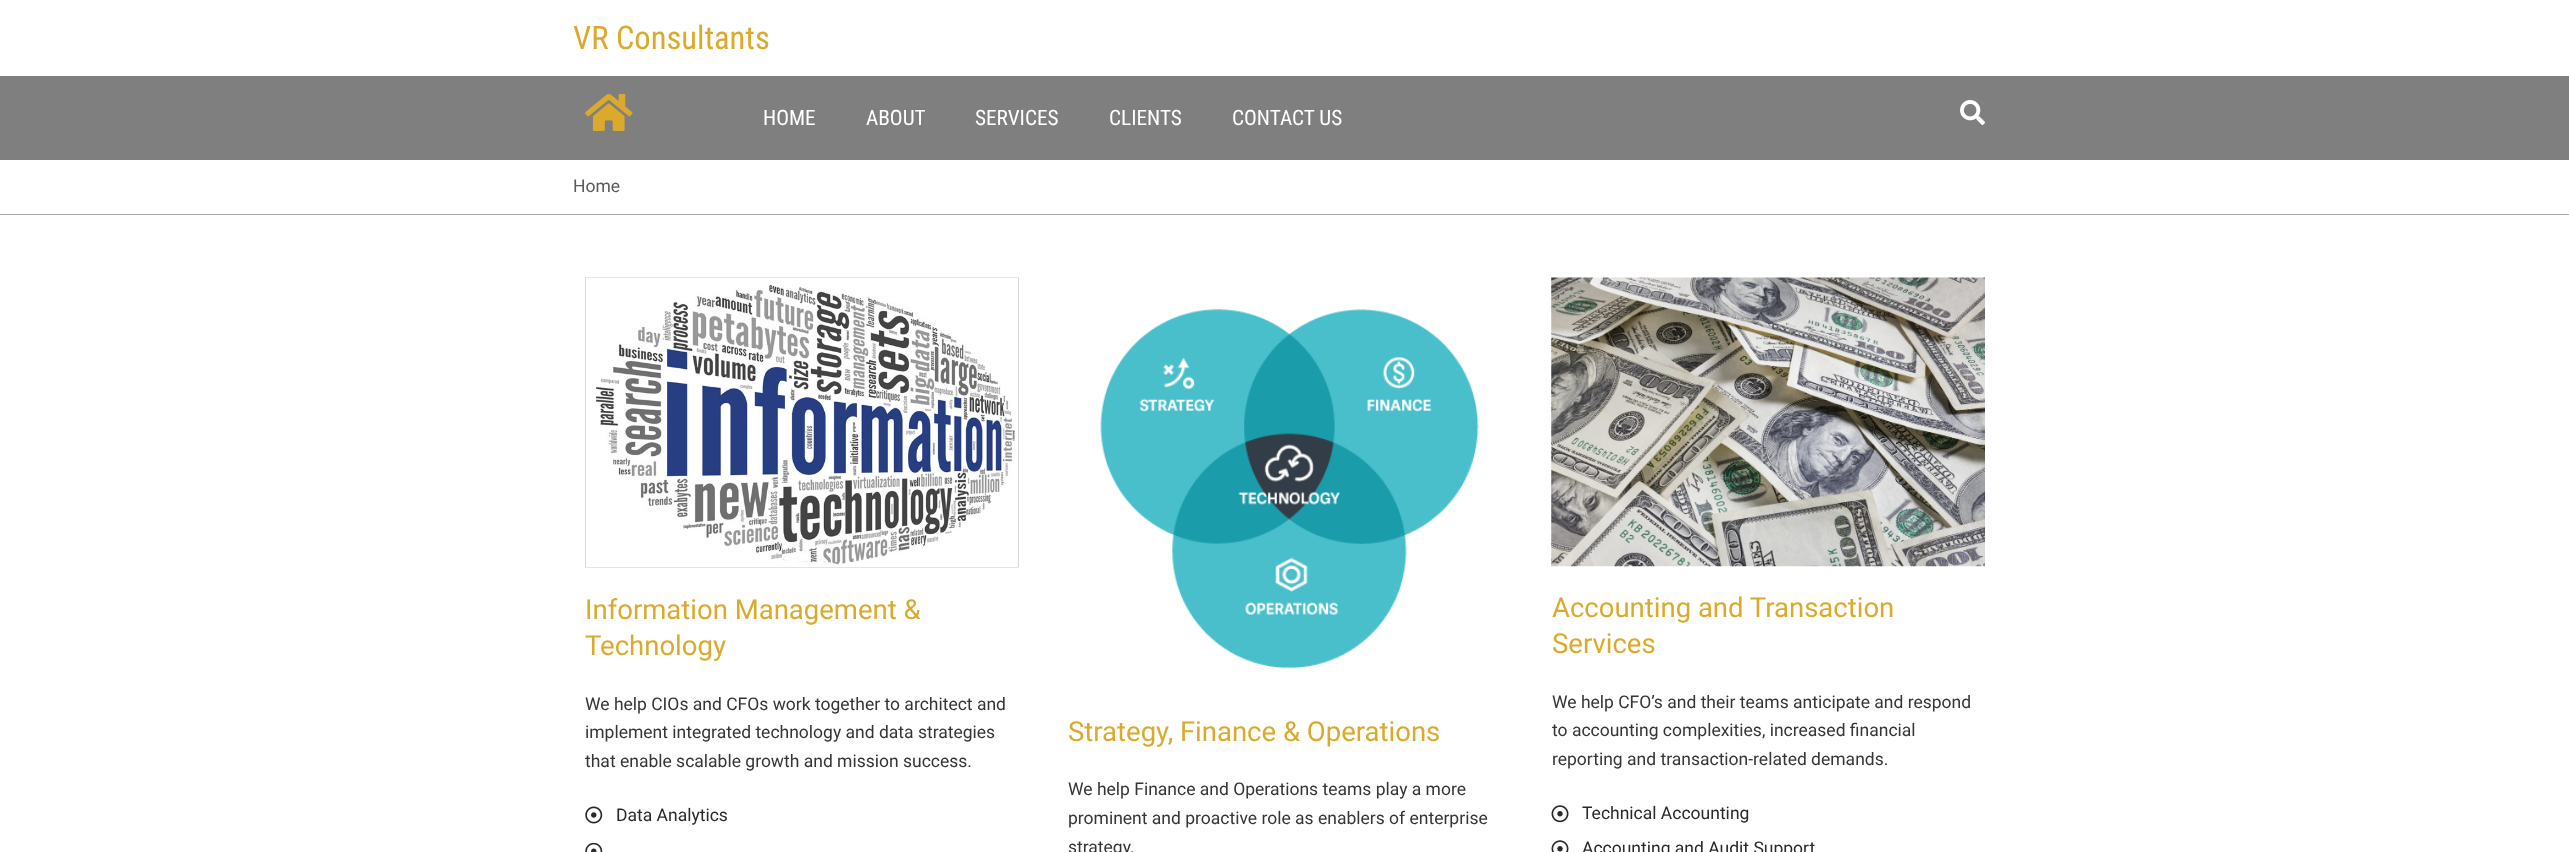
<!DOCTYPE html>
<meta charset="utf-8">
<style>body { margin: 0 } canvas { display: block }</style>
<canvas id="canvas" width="2569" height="852"></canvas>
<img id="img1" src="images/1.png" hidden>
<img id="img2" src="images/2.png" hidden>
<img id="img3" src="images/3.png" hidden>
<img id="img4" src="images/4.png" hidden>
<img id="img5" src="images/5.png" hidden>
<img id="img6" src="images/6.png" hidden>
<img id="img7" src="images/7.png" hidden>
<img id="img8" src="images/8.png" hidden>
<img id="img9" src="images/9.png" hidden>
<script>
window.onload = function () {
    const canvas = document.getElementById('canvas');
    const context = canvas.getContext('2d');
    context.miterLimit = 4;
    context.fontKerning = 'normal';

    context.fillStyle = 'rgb(255, 255, 255)';
    context.fillRect(0, 0, 2569, 852);
    context.fillStyle = 'rgb(127, 127, 127)';
    context.fillRect(0, 76, 2569, 84);
    context.drawImage(document.getElementById('img1'), 585, 94, 48, 37);
    context.drawImage(document.getElementById('img2'), 1960, 100, 25, 25);
    context.fillStyle = 'rgb(168, 165, 165)';
    context.fillRect(0, 214, 2569, 1);
    context.drawImage(document.getElementById('img3'), 585, 277, 434, 291);
    context.drawImage(document.getElementById('img4'), 585, 806, 18, 18);
    context.drawImage(document.getElementById('img5'), 585, 843, 18, 9);
    context.drawImage(document.getElementById('img6'), 1100, 309, 379, 360);
    context.drawImage(document.getElementById('img7'), 1551, 277, 434, 290);
    context.drawImage(document.getElementById('img8'), 1551, 805, 18, 18);
    context.drawImage(document.getElementById('img9'), 1551, 840, 18, 12);
    context.font = '32.5px Roboto Condensed';
    context.fillStyle = 'rgb(219, 170, 45)';
    context.fillText('VR Consultants', 573, 49);
    context.font = '21.25px Roboto Condensed';
    context.fillStyle = 'rgb(255, 255, 255)';
    context.fillText('HOME', 763, 125);
    context.fillText('ABOUT', 866, 125);
    context.fillText('SERVICES', 975, 125);
    context.fillText('CLIENTS', 1109, 125);
    context.fillText('CONTACT US', 1232, 125);
    context.font = '17.5px Roboto';
    context.fillStyle = 'rgb(94, 89, 89)';
    context.fillText('Home', 573, 192);
    context.font = '27.5px Roboto';
    context.fillStyle = 'rgb(219, 170, 45)';
    context.fillText('Information Management &', 585, 619);
    context.fillText('Technology', 585, 655);
    context.font = '17.5px Roboto';
    context.fillStyle = 'rgb(53, 53, 53)';
    context.fillText('We help CIOs and CFOs work together to architect and', 585, 710);
    context.fillText('implement integrated technology and data strategies', 585, 738);
    context.fillText('that enable scalable growth and mission success.', 585, 767);
    context.fillStyle = 'rgb(41, 41, 41)';
    context.fillText('Data Analytics', 616, 821);
    context.font = '27.5px Roboto';
    context.fillStyle = 'rgb(219, 170, 45)';
    context.fillText('Strategy, Finance & Operations', 1068, 741);
    context.font = '17.5px Roboto';
    context.fillStyle = 'rgb(53, 53, 53)';
    context.fillText('We help Finance and Operations teams play a more', 1068, 795);
    context.fillText('prominent and proactive role as enablers of enterprise', 1068, 824);
    context.fillText('strategy.', 1068, 853);
    context.font = '27.5px Roboto';
    context.fillStyle = 'rgb(219, 170, 45)';
    context.fillText('Accounting and Transaction', 1552, 617);
    context.fillText('Services', 1552, 653);
    context.font = '17.5px Roboto';
    context.fillStyle = 'rgb(53, 53, 53)';
    context.fillText('We help CFO’s and their teams anticipate and respond', 1552, 708);
    context.fillText('to accounting complexities, increased financial', 1552, 736);
    context.fillText('reporting and transaction-related demands.', 1552, 765);
    context.fillStyle = 'rgb(41, 41, 41)';
    context.fillText('Technical Accounting', 1582, 819);
    context.fillText('Accounting and Audit Support', 1582, 854);
};
</script>
